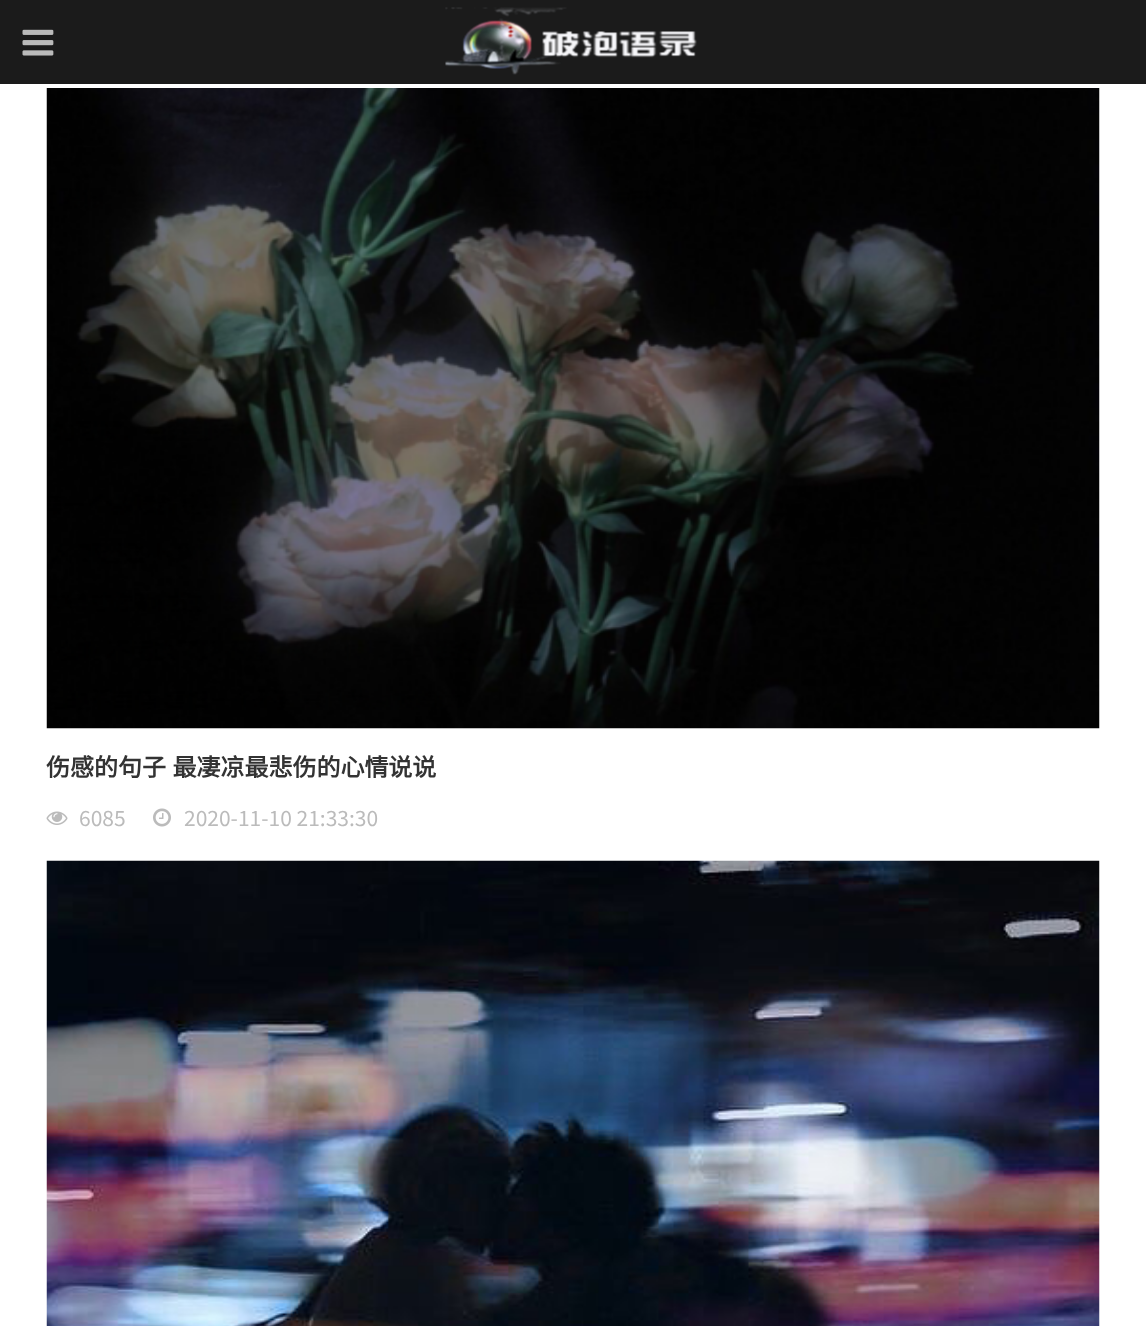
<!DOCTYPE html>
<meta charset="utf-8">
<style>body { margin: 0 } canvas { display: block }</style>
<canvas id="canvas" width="1146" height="1326"></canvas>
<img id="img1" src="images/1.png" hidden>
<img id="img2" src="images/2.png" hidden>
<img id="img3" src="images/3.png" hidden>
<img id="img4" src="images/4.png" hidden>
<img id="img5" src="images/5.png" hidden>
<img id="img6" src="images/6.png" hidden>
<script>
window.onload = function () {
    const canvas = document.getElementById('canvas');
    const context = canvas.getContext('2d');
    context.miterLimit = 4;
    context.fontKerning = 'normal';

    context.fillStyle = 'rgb(255, 255, 255)';
    context.fillRect(0, 0, 1146, 1326);
    context.fillStyle = 'rgb(27, 27, 27)';
    context.fillRect(0, 0, 1146, 84);
    context.drawImage(document.getElementById('img1'), 22, 29, 32, 27);
    context.drawImage(document.getElementById('img2'), 445, 7, 252, 68);
    context.drawImage(document.getElementById('img3'), 46, 88, 1054, 641);
    context.drawImage(document.getElementById('img4'), 46, 811, 22, 14);
    context.drawImage(document.getElementById('img5'), 153, 808, 18, 19);
    context.drawImage(document.getElementById('img6'), 46, 860, 1054, 466);
    context.wordSpacing = '1px';
    context.font = 'bold 24px Noto Sans CJK SC';
    context.fillStyle = 'rgb(51, 51, 51)';
    context.fillText('伤感的句子 最凄凉最悲伤的心情说说', 46, 776);
    context.wordSpacing = '0px';
    context.font = '21px Noto Sans CJK SC';
    context.fillStyle = 'rgb(187, 187, 187)';
    context.fillText('6085', 79, 826);
    context.fillText('2020-11-10 21:33:30', 184, 826);
};
</script>
